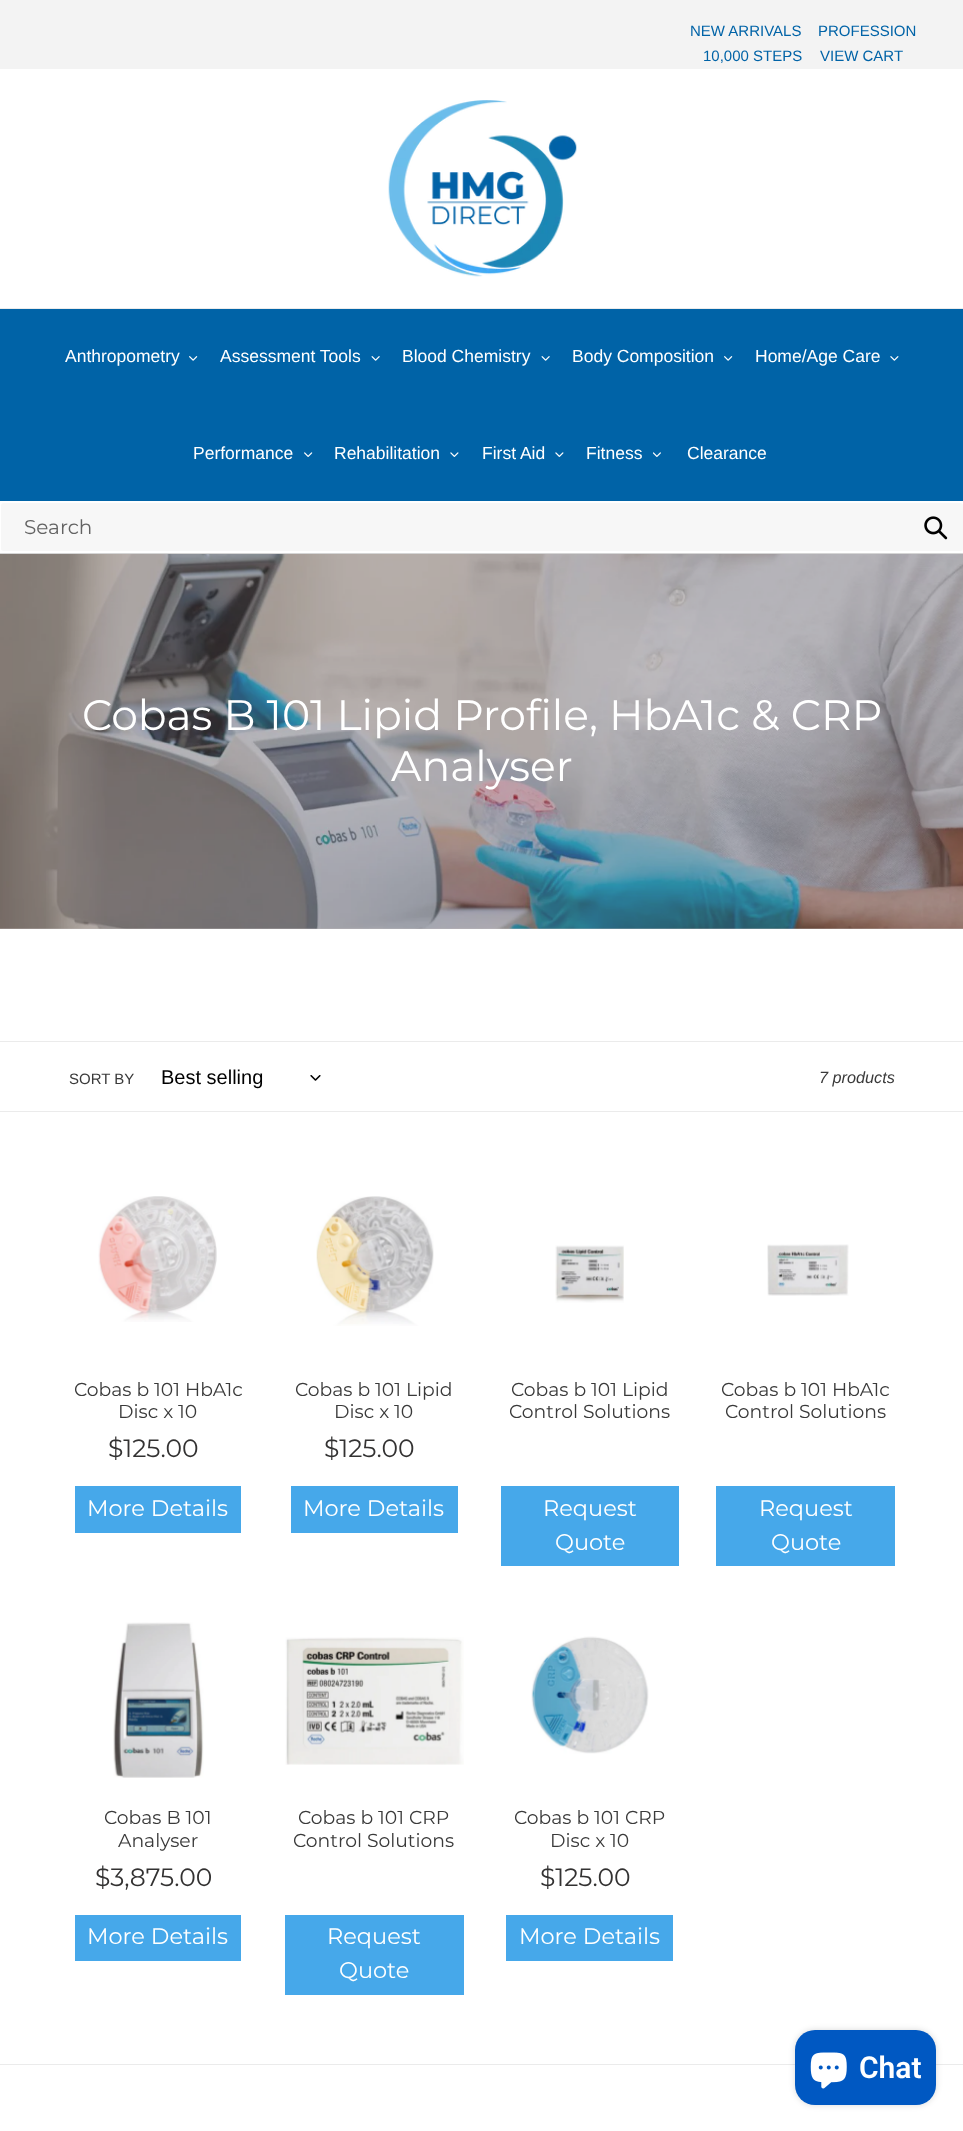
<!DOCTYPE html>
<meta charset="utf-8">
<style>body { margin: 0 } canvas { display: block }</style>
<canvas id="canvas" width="963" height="2131"></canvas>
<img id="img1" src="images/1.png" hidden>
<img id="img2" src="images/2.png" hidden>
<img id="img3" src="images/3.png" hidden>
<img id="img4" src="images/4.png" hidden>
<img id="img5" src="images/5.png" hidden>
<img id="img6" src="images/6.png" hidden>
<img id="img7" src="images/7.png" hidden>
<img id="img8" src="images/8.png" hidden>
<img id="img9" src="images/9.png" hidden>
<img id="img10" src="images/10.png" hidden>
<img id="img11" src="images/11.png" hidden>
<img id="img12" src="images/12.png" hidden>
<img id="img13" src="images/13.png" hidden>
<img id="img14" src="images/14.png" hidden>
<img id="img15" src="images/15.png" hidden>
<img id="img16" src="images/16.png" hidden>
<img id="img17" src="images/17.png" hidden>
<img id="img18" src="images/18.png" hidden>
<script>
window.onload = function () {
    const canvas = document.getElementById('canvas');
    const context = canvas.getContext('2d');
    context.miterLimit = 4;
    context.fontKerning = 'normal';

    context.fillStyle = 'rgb(255, 255, 255)';
    context.fillRect(0, 0, 963, 2131);
    context.fillStyle = 'rgb(195, 188, 188)';
    context.fillRect(0, 928, 963, 1);
    context.fillStyle = 'rgb(243, 243, 243)';
    context.fillRect(0, 0, 963, 69);
    context.fillStyle = 'rgb(235, 235, 235)';
    context.fillRect(0, 308, 963, 1);
    context.drawImage(document.getElementById('img1'), 388, 100, 189, 177);
    context.fillStyle = 'rgb(0, 99, 167)';
    context.fillRect(0, 309, 963, 192);
    context.drawImage(document.getElementById('img2'), 189, 356, 9, 5);
    context.drawImage(document.getElementById('img3'), 371, 356, 9, 5);
    context.drawImage(document.getElementById('img3'), 541, 356, 9, 5);
    context.drawImage(document.getElementById('img2'), 724, 356, 9, 5);
    context.drawImage(document.getElementById('img4'), 890, 356, 9, 5);
    context.drawImage(document.getElementById('img5'), 304, 452, 9, 5);
    context.drawImage(document.getElementById('img6'), 450, 452, 9, 5);
    context.drawImage(document.getElementById('img6'), 555, 452, 9, 5);
    context.drawImage(document.getElementById('img7'), 653, 452, 8, 5);
    context.fillStyle = 'rgb(213, 213, 213)';
    context.fillRect(0, 553, 963, 1);
    context.fillStyle = 'rgb(247, 247, 247)';
    context.beginPath();
    context.roundRect(1, 503, 962, 48, 2.5);
    context.fill();
    context.drawImage(document.getElementById('img8'), 924, 516, 24, 24);
    context.drawImage(document.getElementById('img9'), 0, 554, 963, 375);
    context.fillStyle = 'rgb(235, 235, 235)';
    context.fillRect(0, 1041, 963, 1);
    context.fillRect(0, 1111, 963, 1);
    context.drawImage(document.getElementById('img10'), 310, 1075, 11, 6);
    context.drawImage(document.getElementById('img11'), 98, 1196, 119, 126);
    context.fillStyle = 'rgb(70, 168, 234)';
    context.fillRect(75, 1486, 166, 47);
    context.drawImage(document.getElementById('img12'), 316, 1196, 118, 130);
    context.fillRect(291, 1486, 167, 47);
    context.drawImage(document.getElementById('img13'), 555, 1245, 69, 58);
    context.fillRect(501, 1486, 178, 80);
    context.drawImage(document.getElementById('img14'), 767, 1244, 82, 52);
    context.fillRect(716, 1486, 179, 80);
    context.drawImage(document.getElementById('img15'), 113, 1622, 91, 156);
    context.fillRect(75, 1915, 166, 46);
    context.drawImage(document.getElementById('img16'), 285, 1637, 179, 128);
    context.fillRect(285, 1915, 179, 80);
    context.drawImage(document.getElementById('img17'), 531, 1636, 118, 118);
    context.fillRect(506, 1915, 167, 46);
    context.fillStyle = 'rgb(235, 235, 235)';
    context.fillRect(0, 2064, 963, 1);
    context.fillStyle = 'rgba(0, 0, 0, 0.15)';
    context.filter = 'blur(3px)';
    context.beginPath();
    context.roundRect(795, 2030, 141, 75, 20);
    context.fill();
    context.filter = 'none';
    context.fillStyle = 'rgb(0, 88, 194)';
    context.beginPath();
    context.roundRect(795, 2030, 141, 75, 20);
    context.fill();
    context.drawImage(document.getElementById('img18'), 810, 2052, 37, 37);
    context.font = '15px Liberation Sans';
    context.fillStyle = 'rgb(0, 99, 167)';
    context.fillText('NEW ARRIVALS', 690, 36);
    context.fillText('PROFESSION', 818, 36);
    context.fillText('10,000 STEPS', 703, 61);
    context.fillText('VIEW CART', 820, 61);
    context.font = '17.5px Liberation Sans';
    context.fillStyle = 'rgb(255, 255, 255)';
    context.fillText('Anthropometry', 65, 362);
    context.fillText('Assessment Tools', 220, 362);
    context.fillText('Blood Chemistry', 402, 362);
    context.fillText('Body Composition', 572, 362);
    context.fillText('Home/Age Care', 755, 362);
    context.fillText('Performance', 193, 459);
    context.fillText('Rehabilitation', 334, 459);
    context.fillText('First Aid', 482, 459);
    context.fillText('Fitness', 586, 459);
    context.fillText('Clearance', 687, 459);
    context.font = '20px Montserrat';
    context.fillStyle = 'rgb(99, 99, 99)';
    context.fillText('Search', 24, 534);
    context.font = '42.5px Montserrat';
    context.fillStyle = 'rgb(255, 255, 255)';
    context.fillText('Cobas B 101 Lipid Profile, HbA1c & CRP', 82, 730);
    context.fillText('Analyser', 391, 781);
    context.font = '15px Liberation Sans';
    context.fillStyle = 'rgb(58, 58, 58)';
    context.fillText('SORT BY', 69, 1084);
    context.font = '20px Liberation Sans';
    context.fillStyle = 'rgb(0, 0, 0)';
    context.fillText('Best selling', 161, 1084);
    context.font = 'italic 16.25px Liberation Sans';
    context.fillStyle = 'rgb(58, 58, 58)';
    context.fillText('7 products', 819, 1083);
    context.font = '18.75px Montserrat';
    context.fillText('Cobas b 101 HbA1c', 74, 1396);
    context.fillText('Disc x 10', 118, 1418);
    context.font = '25px Montserrat';
    context.fillStyle = 'rgb(51, 50, 50)';
    context.fillText('$125.00', 108, 1457);
    context.font = '22.5px Montserrat';
    context.fillStyle = 'rgb(255, 255, 255)';
    context.fillText('More Details', 87, 1516);
    context.font = '18.75px Montserrat';
    context.fillStyle = 'rgb(58, 58, 58)';
    context.fillText('Cobas b 101 Lipid', 295, 1396);
    context.fillText('Disc x 10', 334, 1418);
    context.font = '25px Montserrat';
    context.fillStyle = 'rgb(51, 50, 50)';
    context.fillText('$125.00', 324, 1457);
    context.font = '22.5px Montserrat';
    context.fillStyle = 'rgb(255, 255, 255)';
    context.fillText('More Details', 303, 1516);
    context.font = '18.75px Montserrat';
    context.fillStyle = 'rgb(58, 58, 58)';
    context.fillText('Cobas b 101 Lipid', 511, 1396);
    context.fillText('Control Solutions', 509, 1418);
    context.font = '22.5px Montserrat';
    context.fillStyle = 'rgb(255, 255, 255)';
    context.fillText('Request', 543, 1516);
    context.fillText('Quote', 555, 1550);
    context.font = '18.75px Montserrat';
    context.fillStyle = 'rgb(58, 58, 58)';
    context.fillText('Cobas b 101 HbA1c', 721, 1396);
    context.fillText('Control Solutions', 725, 1418);
    context.font = '22.5px Montserrat';
    context.fillStyle = 'rgb(255, 255, 255)';
    context.fillText('Request', 759, 1516);
    context.fillText('Quote', 771, 1550);
    context.font = '18.75px Montserrat';
    context.fillStyle = 'rgb(58, 58, 58)';
    context.fillText('Cobas B 101', 104, 1824);
    context.fillText('Analyser', 118, 1847);
    context.font = '25px Montserrat';
    context.fillStyle = 'rgb(51, 50, 50)';
    context.fillText('$3,875.00', 95, 1886);
    context.font = '22.5px Montserrat';
    context.fillStyle = 'rgb(255, 255, 255)';
    context.fillText('More Details', 87, 1944);
    context.font = '18.75px Montserrat';
    context.fillStyle = 'rgb(58, 58, 58)';
    context.fillText('Cobas b 101 CRP', 298, 1824);
    context.fillText('Control Solutions', 293, 1847);
    context.font = '22.5px Montserrat';
    context.fillStyle = 'rgb(255, 255, 255)';
    context.fillText('Request', 327, 1944);
    context.fillText('Quote', 339, 1978);
    context.font = '18.75px Montserrat';
    context.fillStyle = 'rgb(58, 58, 58)';
    context.fillText('Cobas b 101 CRP', 514, 1824);
    context.fillText('Disc x 10', 550, 1847);
    context.font = '25px Montserrat';
    context.fillStyle = 'rgb(51, 50, 50)';
    context.fillText('$125.00', 540, 1886);
    context.font = '22.5px Montserrat';
    context.fillStyle = 'rgb(255, 255, 255)';
    context.fillText('More Details', 519, 1944);
    context.font = '600 30px Roboto';
    context.fillText('Chat', 859, 2078);
};
</script>
